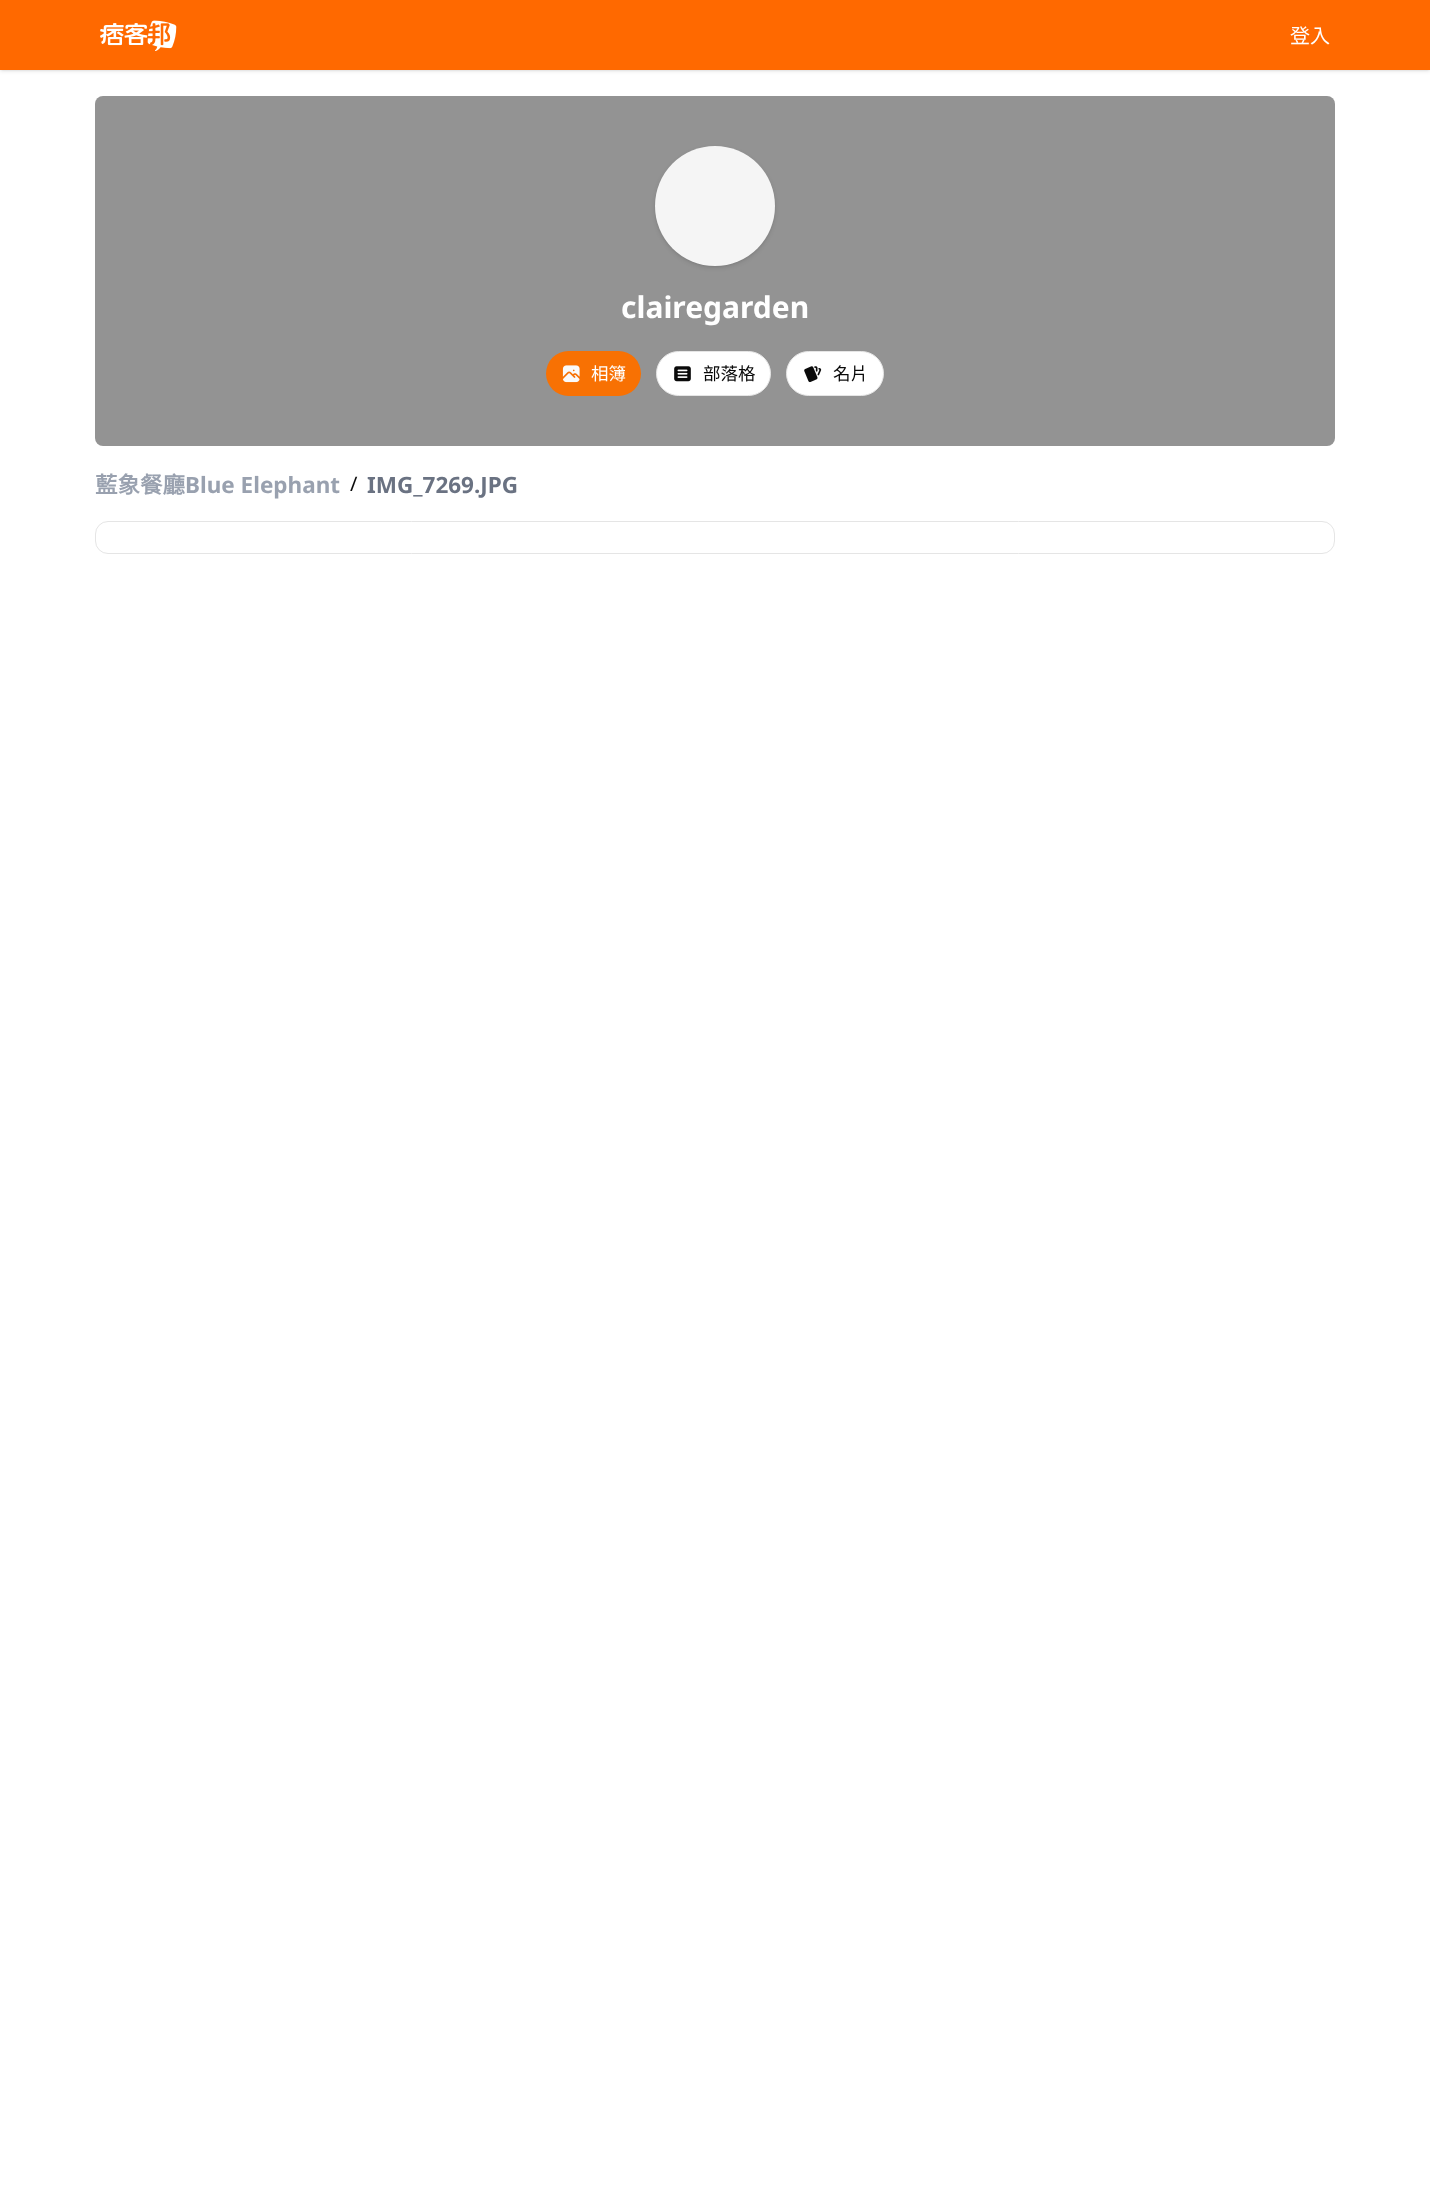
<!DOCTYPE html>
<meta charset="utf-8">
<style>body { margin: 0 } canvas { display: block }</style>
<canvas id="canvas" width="1430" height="2198"></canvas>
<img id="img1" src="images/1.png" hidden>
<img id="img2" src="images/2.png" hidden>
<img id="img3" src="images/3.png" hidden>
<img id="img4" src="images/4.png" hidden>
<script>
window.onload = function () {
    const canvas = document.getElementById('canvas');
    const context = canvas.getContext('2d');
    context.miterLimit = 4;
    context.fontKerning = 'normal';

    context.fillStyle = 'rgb(255, 255, 255)';
    context.fillRect(0, 0, 1430, 2198);
    context.fillStyle = 'rgba(0, 0, 0, 0.1)';
    context.filter = 'blur(1px)';
    context.beginPath();
    context.rect(1, 3, 1428, 67);
    context.fill();
    context.filter = 'none';
    context.filter = 'blur(2px)';
    context.beginPath();
    context.rect(0, 1, 1430, 70);
    context.fill();
    context.filter = 'none';
    context.fillStyle = 'rgb(255, 105, 0)';
    context.fillRect(0, 0, 1430, 70);
    context.drawImage(document.getElementById('img1'), 100, 20, 77, 31);
    context.fillStyle = 'rgb(245, 245, 245)';
    context.beginPath();
    context.roundRect(95, 96, 1240, 350, 8);
    context.fill();
    context.fillStyle = 'rgba(0, 0, 0, 0.4)';
    context.beginPath();
    context.roundRect(95, 96, 1240, 350, 8);
    context.fill();
    context.fillStyle = 'rgba(0, 0, 0, 0.1)';
    context.filter = 'blur(1px)';
    context.beginPath();
    context.roundRect(656, 149, 118, 117, 58.5);
    context.fill();
    context.filter = 'none';
    context.filter = 'blur(2px)';
    context.beginPath();
    context.roundRect(655, 148, 120, 120, 60);
    context.fill();
    context.filter = 'none';
    context.fillStyle = 'rgb(245, 245, 245)';
    context.beginPath();
    context.arc(715, 206, 60, 0, 2 * Math.PI);
    context.fill();
    context.fillStyle = 'rgb(248, 113, 3)';
    context.beginPath();
    context.roundRect(546, 351, 95, 45, 22.5);
    context.fill();
    context.drawImage(document.getElementById('img2'), 562, 365, 18, 18);
    context.fillStyle = 'rgb(255, 255, 255)';
    context.beginPath();
    context.roundRect(656.5, 351.5, 114, 44, 22);
    context.fill();
    context.strokeStyle = 'rgb(229, 229, 229)';
    context.stroke();
    context.drawImage(document.getElementById('img3'), 674, 366, 17, 16);
    context.beginPath();
    context.roundRect(786.5, 351.5, 97, 44, 22);
    context.fill();
    context.stroke();
    context.drawImage(document.getElementById('img4'), 804, 366, 18, 17);
    context.beginPath();
    context.roundRect(95.5, 521.5, 1239, 32, 12.5);
    context.stroke();
    context.font = '20px Noto Sans CJK TC';
    context.fillText('登入', 1290, 43);
    context.font = 'bold 30px Noto Sans';
    context.fillText('clairegarden', 621, 318);
    context.font = '17.5px Noto Sans CJK TC';
    context.fillText('相簿', 591, 380);
    context.fillStyle = 'rgb(10, 10, 10)';
    context.fillText('部落格', 703, 380);
    context.fillText('名片', 833, 380);
    context.font = 'bold 22.5px Noto Sans CJK TC';
    context.fillStyle = 'rgb(153, 161, 175)';
    context.fillText('藍象餐廳', 95, 493);
    context.font = 'bold 22.5px Noto Sans';
    context.fillText('Blue Elephant', 185, 493);
    context.font = '20px Noto Sans';
    context.fillStyle = 'rgb(10, 10, 10)';
    context.fillText('/', 350, 491);
    context.font = 'bold 22.5px Noto Sans';
    context.fillStyle = 'rgb(106, 114, 130)';
    context.fillText('IMG_7269.JPG', 367, 493);
};
</script>
